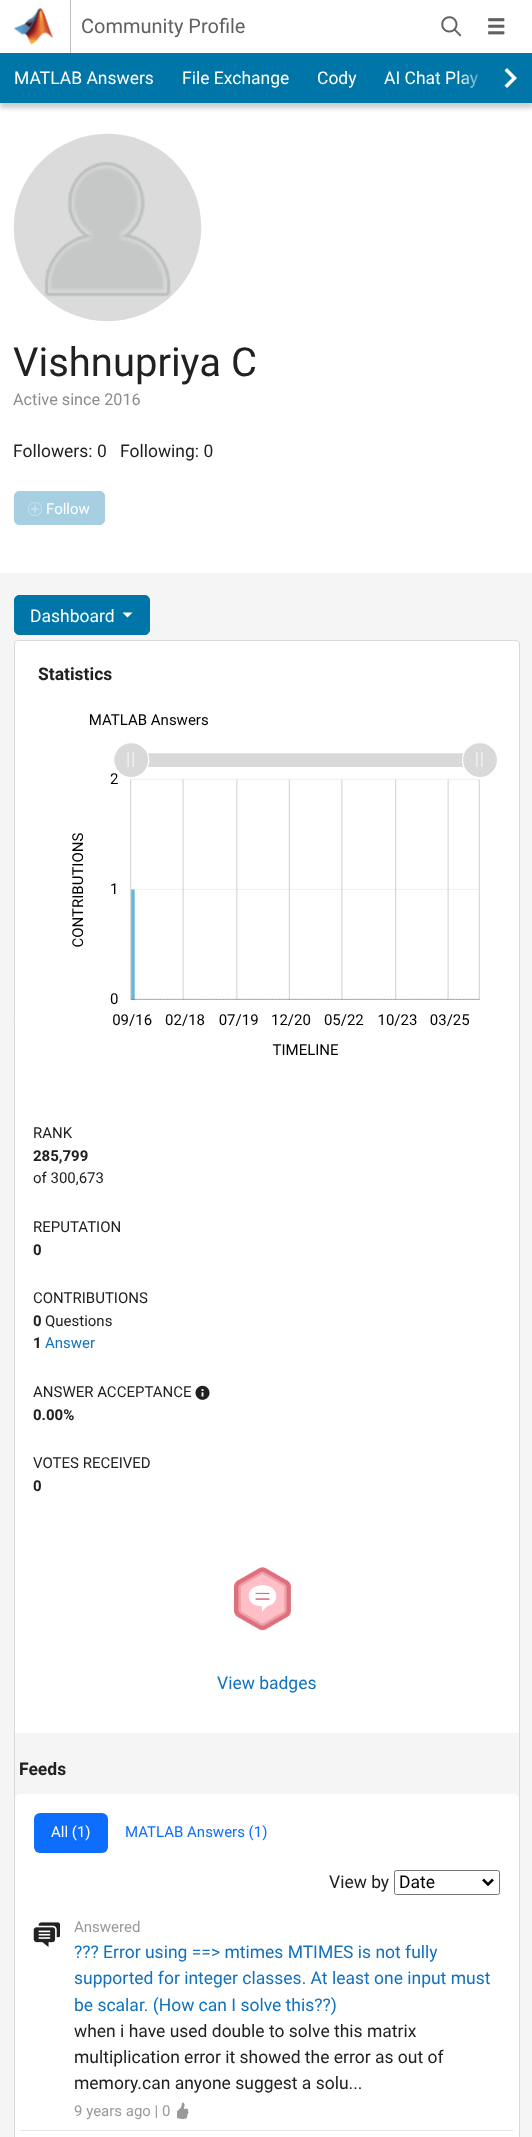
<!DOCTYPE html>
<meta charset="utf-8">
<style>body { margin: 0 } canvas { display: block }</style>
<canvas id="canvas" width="532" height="2137"></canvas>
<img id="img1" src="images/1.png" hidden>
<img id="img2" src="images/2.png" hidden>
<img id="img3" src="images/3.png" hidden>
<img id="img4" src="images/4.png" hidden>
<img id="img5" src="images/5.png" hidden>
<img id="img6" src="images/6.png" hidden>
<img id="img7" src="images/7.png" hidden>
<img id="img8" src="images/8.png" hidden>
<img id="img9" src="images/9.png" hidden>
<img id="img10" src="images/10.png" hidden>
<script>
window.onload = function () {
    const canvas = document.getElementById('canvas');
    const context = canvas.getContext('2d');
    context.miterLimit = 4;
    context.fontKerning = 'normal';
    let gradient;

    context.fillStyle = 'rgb(255, 255, 255)';
    context.fillRect(0, 0, 532, 2137);
    context.fillStyle = 'rgb(191, 191, 191)';
    context.fillRect(70, 0, 1, 53);
    context.drawImage(document.getElementById('img1'), 13, 8, 41, 37);
    context.drawImage(document.getElementById('img2'), 441, 16, 21, 21);
    context.drawImage(document.getElementById('img3'), 488, 18, 17, 17);
    context.fillStyle = 'rgba(0, 0, 0, 0.2)';
    context.filter = 'blur(2.5px)';
    context.beginPath();
    context.rect(0, 58, 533, 50);
    context.fill();
    context.filter = 'none';
    context.fillStyle = 'rgb(0, 118, 168)';
    context.fillRect(0, 53, 489, 50);
    context.fillRect(518, 53, 14, 50);
    context.drawImage(document.getElementById('img4'), 13, 133, 189, 189);
    context.fillStyle = 'rgb(166, 207, 225)';
    context.beginPath();
    context.roundRect(14.5, 491.5, 90, 33, 4.5);
    context.fill();
    context.strokeStyle = 'rgb(166, 207, 225)';
    context.stroke();
    context.drawImage(document.getElementById('img5'), 28, 502, 14, 14);
    context.fillStyle = 'rgb(245, 245, 245)';
    context.fillRect(0, 573, 532, 1564);
    context.fillStyle = 'rgb(0, 118, 168)';
    context.beginPath();
    context.roundRect(14.5, 595.5, 135, 39, 4.5);
    context.fill();
    context.strokeStyle = 'rgb(0, 118, 168)';
    context.stroke();
    context.fillStyle = 'rgb(255, 255, 255)';
    context.beginPath();
    context.moveTo(122.5, 612.5);
    context.lineTo(132.5, 612.5);
    context.lineTo(127.5, 617.5);
    context.closePath();
    context.fill();
    context.beginPath();
    context.roundRect(14.5, 640.5, 505, 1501, 3.5);
    context.fill();
    context.strokeStyle = 'rgb(217, 217, 217)';
    context.stroke();
    context.drawImage(document.getElementById('img6'), 72, 714, 425, 341);
    context.drawImage(document.getElementById('img7'), 195, 1385, 15, 15);
    context.drawImage(document.getElementById('img8'), 234, 1567, 57, 64);
    context.fillStyle = 'rgb(245, 245, 245)';
    context.fillRect(15, 1733, 504, 66);
    context.fillStyle = 'rgb(255, 255, 255)';
    context.beginPath();
    context.roundRect(15, 1794, 504, 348, 5);
    context.fill();
    context.fillStyle = 'rgb(13, 110, 253)';
    context.beginPath();
    context.roundRect(34, 1813, 74, 40, 6);
    context.fill();
    context.beginPath();
    context.roundRect(394.5, 1870.5, 105, 24, 2);
    context.strokeStyle = 'rgb(118, 118, 118)';
    context.stroke();
    context.beginPath();
    context.moveTo(483, 1879.5);
    context.lineTo(488, 1884.5);
    context.lineTo(493, 1879.5);
    context.strokeStyle = 'rgb(0, 0, 0)';
    context.lineWidth = 2.5;
    context.stroke();
    context.fillStyle = 'rgb(230, 230, 230)';
    context.fillRect(20, 2130, 493, 1);
    context.drawImage(document.getElementById('img9'), 33, 1922, 27, 25);
    context.drawImage(document.getElementById('img10'), 177, 2102, 12, 18);
    context.font = '20px Roboto';
    context.fillStyle = 'rgb(97, 97, 97)';
    context.fillText('Community Profile', 81, 33);
    context.font = '17.5px Roboto';
    context.fillStyle = 'rgb(255, 255, 255)';
    context.fillText('MATLAB Answers', 14, 84);
    context.fillText('File Exchange', 182, 84);
    context.fillText('Cody', 317, 84);
    context.fillText('AI Chat Play', 384, 84);
    gradient = context.createLinearGradient(458, 78, 520, 78);
    gradient.addColorStop(0, 'rgba(0, 118, 168, 0)');
    gradient.addColorStop(0.5, 'rgb(0, 118, 168)');
    gradient.addColorStop(1, 'rgb(0, 118, 168)');
    context.fillStyle = gradient;
    context.fillRect(461, 53, 57, 50);
    context.fillStyle = 'rgb(255, 255, 255)';
    context.beginPath();
    context.moveTo(507, 68);
    context.lineTo(504.5, 70.5);
    context.lineTo(512, 78);
    context.lineTo(504.5, 85.5);
    context.lineTo(507, 88);
    context.lineTo(517, 78);
    context.closePath();
    context.fill();
    context.font = '40px Roboto';
    context.fillStyle = 'rgb(33, 33, 33)';
    context.fillText('Vishnupriya C', 13, 376);
    context.font = '16.25px Roboto';
    context.fillStyle = 'rgb(140, 140, 140)';
    context.fillText('Active since 2016', 13, 405);
    context.font = '17.5px Roboto';
    context.fillStyle = 'rgb(33, 33, 33)';
    context.fillText('Followers: 0', 13, 457);
    context.fillText('Following: 0', 120, 457);
    context.font = '15px Roboto';
    context.fillStyle = 'rgb(255, 255, 255)';
    context.fillText('Follow', 46, 514);
    context.font = '17.5px Roboto';
    context.fillText('Dashboard', 30, 622);
    context.font = 'bold 17.5px Roboto';
    context.fillStyle = 'rgb(33, 33, 33)';
    context.fillText('Statistics', 38, 680);
    context.font = '15px Roboto';
    context.fillText('RANK', 33, 1138);
    context.font = 'bold 15px Roboto';
    context.fillText('285,799', 33, 1161);
    context.font = '15px Roboto';
    context.fillText('of 300,673', 33, 1183);
    context.fillText('REPUTATION', 33, 1232);
    context.font = 'bold 15px Roboto';
    context.fillText('0', 33, 1255);
    context.font = '15px Roboto';
    context.fillText('CONTRIBUTIONS', 33, 1303);
    context.font = 'bold 15px Roboto';
    context.fillText('0', 33, 1326);
    context.font = '15px Roboto';
    context.fillText('Questions', 45, 1326);
    context.font = 'bold 15px Roboto';
    context.fillText('1', 33, 1348);
    context.font = '15px Roboto';
    context.fillStyle = 'rgb(17, 113, 190)';
    context.fillText('Answer', 45, 1348);
    context.fillStyle = 'rgb(33, 33, 33)';
    context.fillText('ANSWER ACCEPTANCE', 33, 1397);
    context.font = 'bold 15px Roboto';
    context.fillText('0.00%', 33, 1420);
    context.font = '15px Roboto';
    context.fillText('VOTES RECEIVED', 33, 1468);
    context.font = 'bold 15px Roboto';
    context.fillText('0', 33, 1491);
    context.font = '17.5px Roboto';
    context.fillStyle = 'rgb(17, 113, 190)';
    context.fillText('View badges', 217, 1689);
    context.font = 'bold 17.5px Roboto';
    context.fillStyle = 'rgb(33, 33, 33)';
    context.fillText('Feeds', 19, 1775);
    context.font = '15px Roboto';
    context.fillStyle = 'rgb(255, 255, 255)';
    context.fillText('All (1)', 51, 1837);
    context.fillStyle = 'rgb(13, 110, 253)';
    context.fillText('MATLAB Answers (1)', 125, 1837);
    context.font = '17.5px Roboto';
    context.fillStyle = 'rgb(33, 33, 33)';
    context.fillText('View by', 329, 1888);
    context.fillStyle = 'rgb(0, 0, 0)';
    context.fillText('Date', 399, 1888);
    context.font = '15px Roboto';
    context.fillStyle = 'rgb(153, 153, 153)';
    context.fillText('Answered', 74, 1932);
    context.font = '17.5px Roboto';
    context.fillStyle = 'rgb(17, 113, 190)';
    context.fillText('??? Error using ==> mtimes MTIMES is not fully', 74, 1958);
    context.fillText('supported for integer classes. At least one input must', 74, 1984);
    context.fillText('be scalar. (How can I solve this??)', 74, 2011);
    context.fillStyle = 'rgb(33, 33, 33)';
    context.fillText('when i have used double to solve this matrix', 74, 2037);
    context.fillText('multiplication error it showed the error as out of', 74, 2063);
    context.fillText('memory.can anyone suggest a solu...', 74, 2089);
    context.font = '15px Roboto';
    context.fillStyle = 'rgb(153, 153, 153)';
    context.fillText('9 years ago | 0', 74, 2116);
};
</script>
